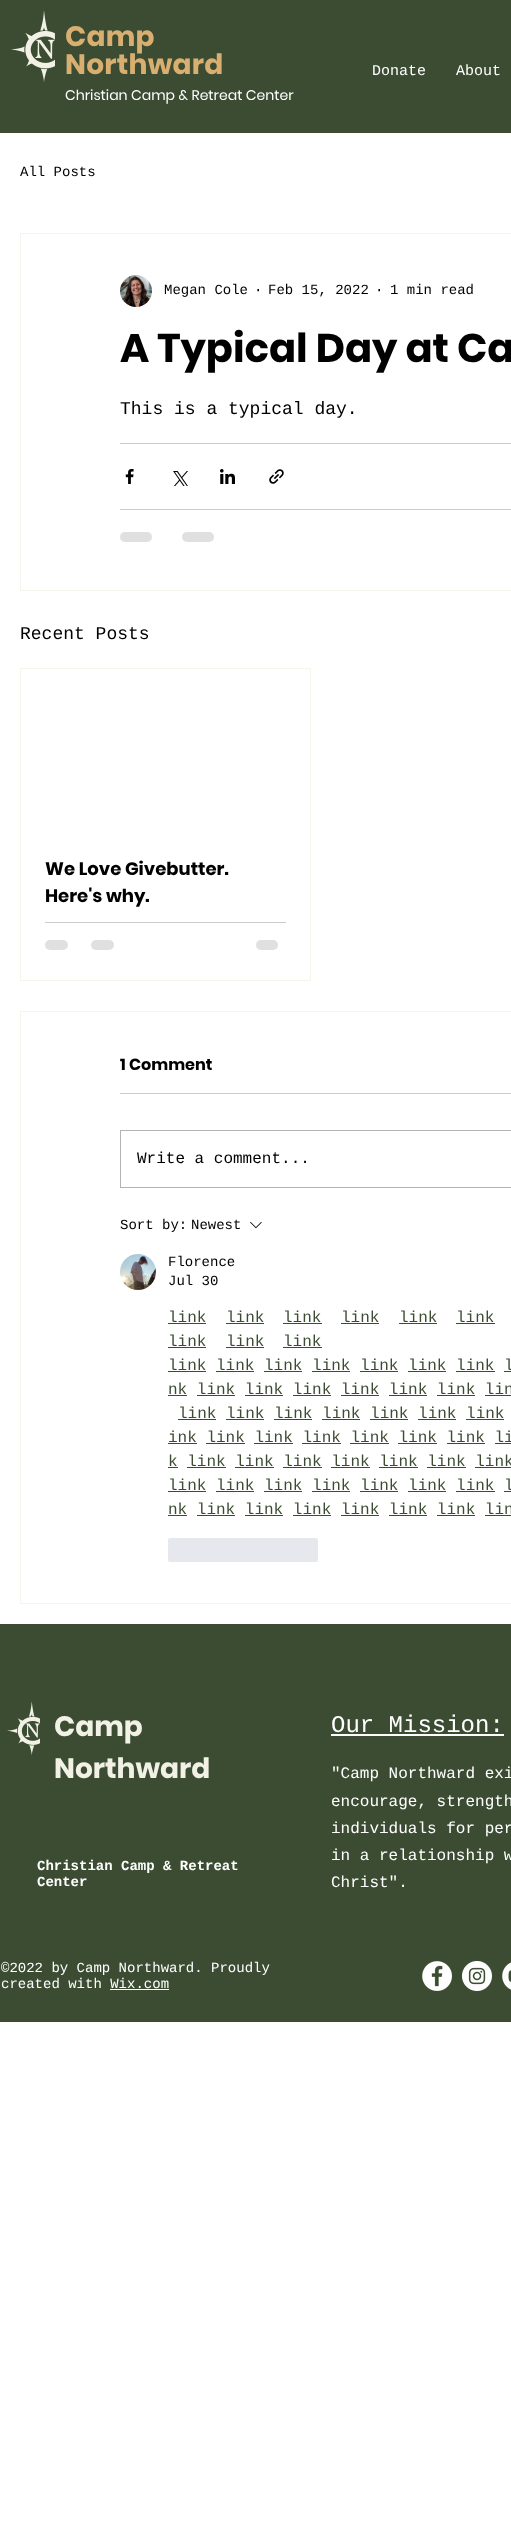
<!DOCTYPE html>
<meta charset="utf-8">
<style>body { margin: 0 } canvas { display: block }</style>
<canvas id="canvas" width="511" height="2532"></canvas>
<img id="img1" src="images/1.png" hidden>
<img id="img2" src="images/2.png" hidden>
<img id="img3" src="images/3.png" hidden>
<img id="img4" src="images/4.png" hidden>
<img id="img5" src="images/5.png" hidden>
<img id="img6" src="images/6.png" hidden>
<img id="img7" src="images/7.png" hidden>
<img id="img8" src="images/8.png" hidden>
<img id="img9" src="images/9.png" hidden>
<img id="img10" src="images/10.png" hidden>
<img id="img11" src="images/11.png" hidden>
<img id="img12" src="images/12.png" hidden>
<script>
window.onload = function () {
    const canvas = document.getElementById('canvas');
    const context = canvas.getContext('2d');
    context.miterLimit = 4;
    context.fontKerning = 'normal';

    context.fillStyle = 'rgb(255, 255, 255)';
    context.fillRect(0, 0, 511, 2532);
    context.fillStyle = 'rgb(59, 76, 50)';
    context.fillRect(0, 0, 511, 133);
    context.drawImage(document.getElementById('img1'), 11, 10, 44, 73);
    context.strokeStyle = 'rgb(245, 245, 236)';
    context.strokeRect(20.5, 233.5, 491, 357);
    context.drawImage(document.getElementById('img2'), 120, 275, 32, 32);
    context.fillStyle = 'rgb(204, 204, 204)';
    context.fillRect(120, 443, 391, 1);
    context.drawImage(document.getElementById('img3'), 125, 469, 9, 15);
    context.drawImage(document.getElementById('img4'), 173, 471, 15, 15);
    context.drawImage(document.getElementById('img5'), 220, 469, 15, 15);
    context.drawImage(document.getElementById('img6'), 269, 469, 15, 15);
    context.fillRect(120, 509, 391, 1);
    context.fillStyle = 'rgb(224, 224, 224)';
    context.beginPath();
    context.roundRect(120, 532, 32, 10, 5);
    context.fill();
    context.beginPath();
    context.roundRect(182, 532, 32, 10, 5);
    context.fill();
    context.strokeRect(20.5, 668.5, 290, 312);
    context.fillStyle = 'rgb(204, 204, 204)';
    context.fillRect(45, 922, 241, 1);
    context.fillStyle = 'rgb(224, 224, 224)';
    context.beginPath();
    context.roundRect(45, 940, 23, 10, 5);
    context.fill();
    context.beginPath();
    context.roundRect(91, 940, 23, 10, 5);
    context.fill();
    context.beginPath();
    context.roundRect(256, 940, 22, 10, 5);
    context.fill();
    context.strokeRect(20.5, 1011.5, 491, 592);
    context.fillStyle = 'rgb(204, 204, 204)';
    context.fillRect(120, 1093, 391, 1);
    context.strokeStyle = 'rgb(179, 179, 179)';
    context.strokeRect(120.5, 1130.5, 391, 57);
    context.drawImage(document.getElementById('img7'), 250, 1221, 12, 8);
    context.drawImage(document.getElementById('img8'), 120, 1254, 36, 36);
    context.fillStyle = 'rgb(59, 76, 50)';
    context.fillRect(168, 1323, 38, 1);
    context.fillRect(226, 1323, 38, 1);
    context.fillRect(283, 1323, 39, 1);
    context.fillRect(341, 1323, 38, 1);
    context.fillRect(399, 1323, 38, 1);
    context.fillRect(456, 1323, 39, 1);
    context.fillRect(168, 1347, 38, 1);
    context.fillRect(226, 1347, 38, 1);
    context.fillRect(283, 1347, 39, 1);
    context.fillRect(168, 1371, 38, 1);
    context.fillRect(216, 1371, 38, 1);
    context.fillRect(264, 1371, 38, 1);
    context.fillRect(312, 1371, 38, 1);
    context.fillRect(360, 1371, 38, 1);
    context.fillRect(408, 1371, 38, 1);
    context.fillRect(456, 1371, 39, 1);
    context.fillRect(504, 1371, 7, 1);
    context.fillRect(168, 1395, 19, 1);
    context.fillRect(197, 1395, 38, 1);
    context.fillRect(245, 1395, 38, 1);
    context.fillRect(293, 1395, 38, 1);
    context.fillRect(341, 1395, 38, 1);
    context.fillRect(389, 1395, 38, 1);
    context.fillRect(437, 1395, 38, 1);
    context.fillRect(485, 1395, 26, 1);
    context.fillRect(178, 1419, 38, 1);
    context.fillRect(226, 1419, 38, 1);
    context.fillRect(274, 1419, 38, 1);
    context.fillRect(322, 1419, 38, 1);
    context.fillRect(370, 1419, 38, 1);
    context.fillRect(418, 1419, 38, 1);
    context.fillRect(466, 1419, 38, 1);
    context.fillRect(168, 1443, 29, 1);
    context.fillRect(206, 1443, 39, 1);
    context.fillRect(254, 1443, 39, 1);
    context.fillRect(302, 1443, 39, 1);
    context.fillRect(350, 1443, 39, 1);
    context.fillRect(398, 1443, 39, 1);
    context.fillRect(447, 1443, 38, 1);
    context.fillRect(495, 1443, 16, 1);
    context.fillRect(168, 1467, 10, 1);
    context.fillRect(187, 1467, 39, 1);
    context.fillRect(235, 1467, 39, 1);
    context.fillRect(283, 1467, 39, 1);
    context.fillRect(331, 1467, 39, 1);
    context.fillRect(379, 1467, 39, 1);
    context.fillRect(427, 1467, 39, 1);
    context.fillRect(475, 1467, 36, 1);
    context.fillRect(168, 1491, 38, 1);
    context.fillRect(216, 1491, 38, 1);
    context.fillRect(264, 1491, 38, 1);
    context.fillRect(312, 1491, 38, 1);
    context.fillRect(360, 1491, 38, 1);
    context.fillRect(408, 1491, 38, 1);
    context.fillRect(456, 1491, 39, 1);
    context.fillRect(504, 1491, 7, 1);
    context.fillRect(168, 1515, 19, 1);
    context.fillRect(197, 1515, 38, 1);
    context.fillRect(245, 1515, 38, 1);
    context.fillRect(293, 1515, 38, 1);
    context.fillRect(341, 1515, 38, 1);
    context.fillRect(389, 1515, 38, 1);
    context.fillRect(437, 1515, 38, 1);
    context.fillRect(485, 1515, 26, 1);
    context.fillStyle = 'rgb(231, 232, 237)';
    context.beginPath();
    context.roundRect(168, 1538, 150, 24, 2);
    context.fill();
    context.fillStyle = 'rgb(59, 76, 50)';
    context.fillRect(0, 1624, 511, 398);
    context.drawImage(document.getElementById('img9'), 7, 1701, 33, 55);
    context.fillStyle = 'rgb(255, 255, 255)';
    context.fillRect(110, 1989, 59, 1);
    context.fillRect(331, 1734, 173, 2);
    context.drawImage(document.getElementById('img10'), 422, 1961, 30, 30);
    context.drawImage(document.getElementById('img11'), 462, 1961, 30, 30);
    context.drawImage(document.getElementById('img12'), 502, 1962, 9, 28);
    context.letterSpacing = '0.25px';
    context.font = 'bold 28px Poppins';
    context.fillStyle = 'rgb(217, 175, 113)';
    context.fillText('Camp', 65, 46);
    context.fillText('Northward', 65, 74);
    context.letterSpacing = '0px';
    context.font = '14px Poppins';
    context.fillStyle = 'rgb(255, 255, 255)';
    context.fillText('Christian Camp & Retreat Center', 65, 100);
    context.font = '15px Liberation Mono';
    context.fillText('Donate', 372, 75);
    context.fillText('About', 456, 75);
    context.font = '14px Liberation Mono';
    context.fillStyle = 'rgb(0, 0, 0)';
    context.fillText('All Posts', 20, 176);
    context.fillText('Megan Cole', 164, 294);
    context.fillText('·', 254, 294);
    context.fillText('Feb 15, 2022', 268, 294);
    context.fillText('·', 375, 294);
    context.fillText('1 min read', 390, 294);
    context.font = 'bold 40px Poppins';
    context.fillText('A Typical Day at Ca', 120, 362);
    context.font = '18px Liberation Mono';
    context.fillText('This is a typical day.', 120, 414);
    context.fillText('Recent Posts', 20, 639);
    context.font = 'bold 18px Poppins';
    context.fillText('We Love Givebutter.', 45, 875);
    context.fillText('Here\'s why.', 45, 902);
    context.font = 'bold 16px Poppins';
    context.fillText('1 Comment', 120, 1070);
    context.font = '16px Liberation Mono';
    context.fillText('Write a comment...', 137, 1163);
    context.font = '14px Liberation Mono';
    context.fillText('Sort by:', 120, 1229);
    context.fillText('Newest', 191, 1229);
    context.fillText('Florence', 168, 1266);
    context.fillText('Jul 30', 168, 1285);
    context.font = '16px Liberation Mono';
    context.fillStyle = 'rgb(59, 76, 50)';
    context.fillText('link', 168, 1322);
    context.fillText('link', 226, 1322);
    context.fillText('link', 283, 1322);
    context.fillText('link', 341, 1322);
    context.fillText('link', 399, 1322);
    context.fillText('link', 456, 1322);
    context.fillText('link', 168, 1346);
    context.fillText('link', 226, 1346);
    context.fillText('link', 283, 1346);
    context.fillText('link link link link link link link l', 168, 1370);
    context.fillText('nk link link link link link link lin', 168, 1394);
    context.fillText('link link link link link link link', 178, 1418);
    context.fillText('ink link link link link link link li', 168, 1442);
    context.fillText('k link link link link link link link', 168, 1466);
    context.fillText('link link link link link link link l', 168, 1490);
    context.fillText('nk link link link link link link lin', 168, 1514);
    context.font = 'bold 28px Poppins';
    context.fillStyle = 'rgb(242, 241, 230)';
    context.fillText('Camp', 54, 1736);
    context.fillText('Northward', 54, 1778);
    context.font = 'bold 14px Liberation Mono';
    context.fillStyle = 'rgb(255, 255, 255)';
    context.fillText('Christian Camp & Retreat', 37, 1870);
    context.fillText('Center', 37, 1886);
    context.font = '14px Liberation Mono';
    context.fillText('©2022 by Camp Northward. Proudly', 1, 1972);
    context.fillText('created with Wix.com', 1, 1988);
    context.font = '24px Liberation Mono';
    context.fillText('Our Mission:', 331, 1732);
    context.font = '16px Liberation Mono';
    context.fillText('"Camp Northward exi', 331, 1778);
    context.fillText('encourage, strength', 331, 1806);
    context.fillText('individuals for per', 331, 1833);
    context.fillText('in a relationship w', 331, 1860);
    context.fillText('Christ".', 331, 1887);
};
</script>
